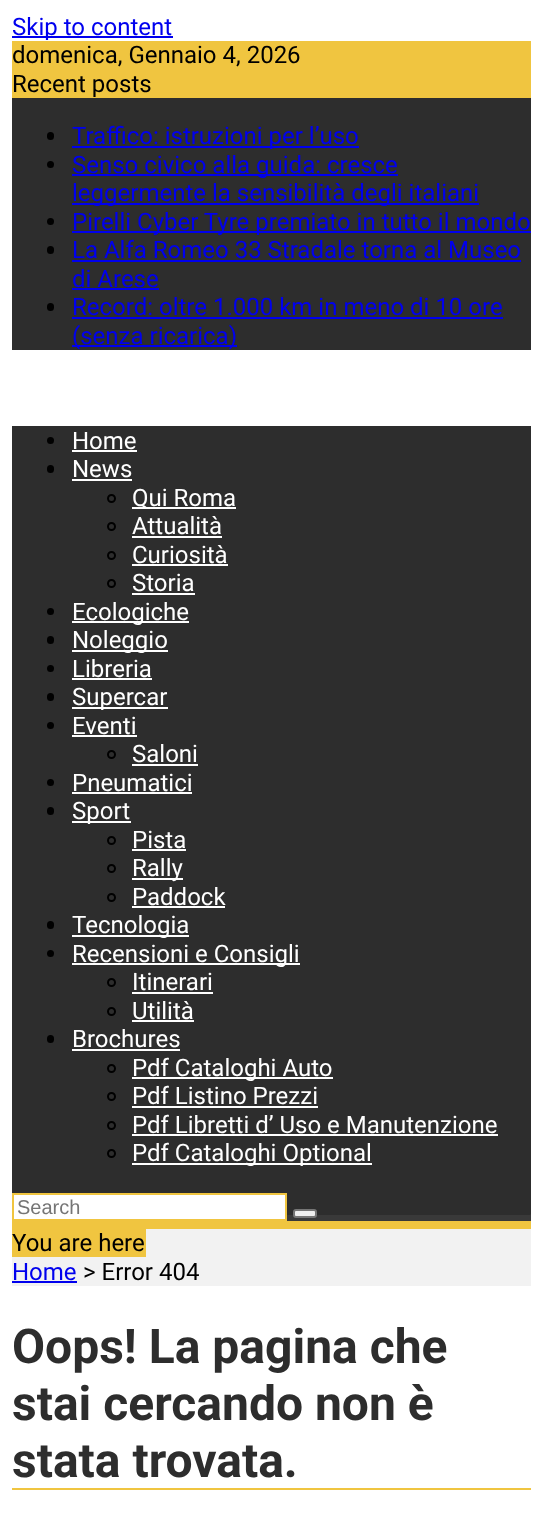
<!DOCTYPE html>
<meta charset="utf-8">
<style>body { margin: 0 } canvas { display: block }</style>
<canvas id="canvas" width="542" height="1523"></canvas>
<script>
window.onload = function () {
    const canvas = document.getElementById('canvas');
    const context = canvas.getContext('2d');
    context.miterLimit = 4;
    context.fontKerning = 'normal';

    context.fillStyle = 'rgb(255, 255, 255)';
    context.fillRect(0, 0, 542, 1523);
    context.fillStyle = 'rgb(0, 0, 238)';
    context.fillRect(12, 36, 161, 2);
    context.fillStyle = 'rgb(45, 45, 45)';
    context.fillRect(12, 98, 519, 252);
    context.fillStyle = 'rgb(240, 197, 64)';
    context.fillRect(12, 41, 519, 57);
    context.fillStyle = 'rgb(0, 0, 0)';
    context.beginPath();
    context.roundRect(47, 132, 7, 8, 3.5);
    context.fill();
    context.fillStyle = 'rgb(0, 0, 238)';
    context.fillRect(72, 146, 287, 2);
    context.fillStyle = 'rgb(0, 0, 0)';
    context.beginPath();
    context.arc(50.5, 164.5, 3.5, 0, 2 * Math.PI);
    context.fill();
    context.fillStyle = 'rgb(0, 0, 238)';
    context.fillRect(72, 174, 326, 2);
    context.fillRect(72, 203, 407, 2);
    context.fillStyle = 'rgb(0, 0, 0)';
    context.beginPath();
    context.arc(50.5, 221.5, 3.5, 0, 2 * Math.PI);
    context.fill();
    context.fillStyle = 'rgb(0, 0, 238)';
    context.fillRect(72, 231, 459, 2);
    context.fillStyle = 'rgb(0, 0, 0)';
    context.beginPath();
    context.roundRect(47, 246, 7, 8, 3.5);
    context.fill();
    context.fillStyle = 'rgb(0, 0, 238)';
    context.fillRect(72, 260, 449, 2);
    context.fillRect(72, 288, 87, 2);
    context.fillStyle = 'rgb(0, 0, 0)';
    context.beginPath();
    context.roundRect(47, 303, 7, 8, 3.5);
    context.fill();
    context.fillStyle = 'rgb(0, 0, 238)';
    context.fillRect(72, 317, 431, 2);
    context.fillRect(72, 345, 165, 2);
    context.fillStyle = 'rgb(45, 45, 45)';
    context.fillRect(12, 426, 519, 789);
    context.save();
    context.beginPath();
    context.rect(12, 426, 519, 795);
    context.clip();
    context.fillStyle = 'rgb(57, 57, 57)';
    context.beginPath();
    context.moveTo(-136, 278);
    context.lineTo(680, 278);
    context.lineTo(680, 1370);
    context.lineTo(-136, 1370);
    context.closePath();
    context.moveTo(10, 417);
    context.lineTo(530, 417);
    context.bezierCurveTo(530, 417, 531, 418, 531, 418);
    context.lineTo(531, 1214);
    context.bezierCurveTo(531, 1214, 530, 1215, 530, 1215);
    context.lineTo(10, 1215);
    context.bezierCurveTo(10, 1215, 9, 1214, 9, 1214);
    context.lineTo(9, 418);
    context.bezierCurveTo(9, 418, 10, 417, 10, 417);
    context.closePath();
    context.fill('evenodd');
    context.restore();
    context.fillStyle = 'rgb(240, 197, 64)';
    context.fillRect(12, 1221, 519, 8);
    context.fillStyle = 'rgb(0, 0, 0)';
    context.beginPath();
    context.arc(50.5, 440.5, 3.5, 0, 2 * Math.PI);
    context.fill();
    context.fillStyle = 'rgb(255, 255, 255)';
    context.fillRect(72, 450, 65, 2);
    context.fillStyle = 'rgb(0, 0, 0)';
    context.beginPath();
    context.roundRect(47, 465, 7, 8, 3.5);
    context.fill();
    context.fillStyle = 'rgb(255, 255, 255)';
    context.fillRect(72, 479, 60, 2);
    context.beginPath();
    context.arc(111.5, 498.5, 3.5, 0, 2 * Math.PI);
    context.strokeStyle = 'rgb(0, 0, 0)';
    context.lineWidth = 2;
    context.stroke();
    context.fillRect(132, 507, 104, 2);
    context.beginPath();
    context.arc(111.5, 526.5, 3.5, 0, 2 * Math.PI);
    context.stroke();
    context.fillRect(132, 536, 90, 2);
    context.beginPath();
    context.arc(111.5, 555.5, 3.5, 0, 2 * Math.PI);
    context.stroke();
    context.fillRect(132, 564, 96, 2);
    context.beginPath();
    context.arc(111.5, 583.5, 3.5, 0, 2 * Math.PI);
    context.stroke();
    context.fillRect(132, 593, 63, 2);
    context.fillStyle = 'rgb(0, 0, 0)';
    context.beginPath();
    context.arc(50.5, 611.5, 3.5, 0, 2 * Math.PI);
    context.fill();
    context.fillStyle = 'rgb(255, 255, 255)';
    context.fillRect(72, 621, 117, 2);
    context.fillStyle = 'rgb(0, 0, 0)';
    context.beginPath();
    context.roundRect(47, 636, 7, 8, 3.5);
    context.fill();
    context.fillStyle = 'rgb(255, 255, 255)';
    context.fillRect(72, 650, 96, 2);
    context.fillStyle = 'rgb(0, 0, 0)';
    context.beginPath();
    context.arc(50.5, 668.5, 3.5, 0, 2 * Math.PI);
    context.fill();
    context.fillStyle = 'rgb(255, 255, 255)';
    context.fillRect(72, 678, 80, 2);
    context.fillStyle = 'rgb(0, 0, 0)';
    context.beginPath();
    context.roundRect(47, 693, 7, 8, 3.5);
    context.fill();
    context.fillStyle = 'rgb(255, 255, 255)';
    context.fillRect(72, 707, 96, 2);
    context.fillStyle = 'rgb(0, 0, 0)';
    context.beginPath();
    context.arc(50.5, 725.5, 3.5, 0, 2 * Math.PI);
    context.fill();
    context.fillStyle = 'rgb(255, 255, 255)';
    context.fillRect(72, 735, 65, 2);
    context.beginPath();
    context.arc(111.5, 754.5, 3.5, 0, 2 * Math.PI);
    context.stroke();
    context.fillRect(132, 764, 66, 2);
    context.fillStyle = 'rgb(0, 0, 0)';
    context.beginPath();
    context.arc(50.5, 782.5, 3.5, 0, 2 * Math.PI);
    context.fill();
    context.fillStyle = 'rgb(255, 255, 255)';
    context.fillRect(72, 792, 120, 2);
    context.fillStyle = 'rgb(0, 0, 0)';
    context.beginPath();
    context.roundRect(47, 807, 7, 8, 3.5);
    context.fill();
    context.fillStyle = 'rgb(255, 255, 255)';
    context.fillRect(72, 821, 59, 2);
    context.beginPath();
    context.arc(111.5, 840.5, 3.5, 0, 2 * Math.PI);
    context.stroke();
    context.fillRect(132, 849, 54, 2);
    context.beginPath();
    context.arc(111.5, 868.5, 3.5, 0, 2 * Math.PI);
    context.stroke();
    context.fillRect(132, 878, 51, 2);
    context.beginPath();
    context.arc(111.5, 897.5, 3.5, 0, 2 * Math.PI);
    context.stroke();
    context.fillRect(132, 906, 93, 2);
    context.fillStyle = 'rgb(0, 0, 0)';
    context.beginPath();
    context.roundRect(47, 921, 7, 8, 3.5);
    context.fill();
    context.fillStyle = 'rgb(255, 255, 255)';
    context.fillRect(72, 935, 117, 2);
    context.fillStyle = 'rgb(0, 0, 0)';
    context.beginPath();
    context.arc(50.5, 953.5, 3.5, 0, 2 * Math.PI);
    context.fill();
    context.fillStyle = 'rgb(255, 255, 255)';
    context.fillRect(72, 963, 228, 2);
    context.beginPath();
    context.arc(111.5, 982.5, 3.5, 0, 2 * Math.PI);
    context.stroke();
    context.fillRect(132, 992, 81, 2);
    context.beginPath();
    context.arc(111.5, 1011.5, 3.5, 0, 2 * Math.PI);
    context.stroke();
    context.fillRect(132, 1020, 62, 2);
    context.fillStyle = 'rgb(0, 0, 0)';
    context.beginPath();
    context.roundRect(47, 1035, 7, 8, 3.5);
    context.fill();
    context.fillStyle = 'rgb(255, 255, 255)';
    context.fillRect(72, 1049, 108, 2);
    context.beginPath();
    context.arc(111.5, 1068.5, 3.5, 0, 2 * Math.PI);
    context.stroke();
    context.fillRect(132, 1077, 201, 2);
    context.beginPath();
    context.arc(111.5, 1096.5, 3.5, 0, 2 * Math.PI);
    context.stroke();
    context.fillRect(132, 1106, 186, 2);
    context.beginPath();
    context.arc(111.5, 1125.5, 3.5, 0, 2 * Math.PI);
    context.stroke();
    context.fillRect(132, 1134, 366, 2);
    context.beginPath();
    context.arc(111.5, 1153.5, 3.5, 0, 2 * Math.PI);
    context.stroke();
    context.fillRect(132, 1163, 240, 2);
    context.beginPath();
    context.rect(13, 1194, 273, 26);
    context.fill();
    context.strokeStyle = 'rgb(240, 197, 64)';
    context.stroke();
    context.fillStyle = 'rgb(239, 239, 239)';
    context.beginPath();
    context.roundRect(294, 1210, 22, 7, 2);
    context.fill();
    context.strokeStyle = 'rgb(118, 118, 118)';
    context.stroke();
    context.fillStyle = 'rgb(242, 242, 242)';
    context.fillRect(12, 1229, 519, 57);
    context.fillStyle = 'rgb(240, 197, 64)';
    context.fillRect(12, 1229, 134, 28);
    context.fillStyle = 'rgb(0, 0, 238)';
    context.fillRect(12, 1281, 65, 2);
    context.fillStyle = 'rgb(240, 197, 64)';
    context.fillRect(12, 1488, 519, 2);
    context.font = '24px Roboto';
    context.fillStyle = 'rgb(0, 0, 238)';
    context.fillText('Skip to content', 12, 35);
    context.fillStyle = 'rgb(0, 0, 0)';
    context.fillText('domenica, Gennaio 4, 2026', 12, 63);
    context.fillText('Recent posts', 12, 92);
    context.fillStyle = 'rgb(0, 0, 238)';
    context.fillText('Traffico: istruzioni per l’uso', 72, 144);
    context.fillText('Senso civico alla guida: cresce', 72, 173);
    context.fillText('leggermente la sensibilità degli italiani', 72, 201);
    context.fillText('Pirelli Cyber Tyre premiato in tutto il mondo', 72, 230);
    context.fillText('La Alfa Romeo 33 Stradale torna al Museo', 72, 258);
    context.fillText('di Arese', 72, 287);
    context.fillText('Record: oltre 1.000 km in meno di 10 ore', 72, 315);
    context.fillText('(senza ricarica)', 72, 344);
    context.fillStyle = 'rgb(255, 255, 255)';
    context.fillText('Home', 72, 449);
    context.fillText('News', 72, 477);
    context.fillText('Qui Roma', 132, 506);
    context.fillText('Attualità', 132, 534);
    context.fillText('Curiosità', 132, 563);
    context.fillText('Storia', 132, 591);
    context.fillText('Ecologiche', 72, 620);
    context.fillText('Noleggio', 72, 648);
    context.fillText('Libreria', 72, 677);
    context.fillText('Supercar', 72, 705);
    context.fillText('Eventi', 72, 734);
    context.fillText('Saloni', 132, 762);
    context.fillText('Pneumatici', 72, 791);
    context.fillText('Sport', 72, 819);
    context.fillText('Pista', 132, 848);
    context.fillText('Rally', 132, 876);
    context.fillText('Paddock', 132, 905);
    context.fillText('Tecnologia', 72, 933);
    context.fillText('Recensioni e Consigli', 72, 962);
    context.fillText('Itinerari', 132, 990);
    context.fillText('Utilità', 132, 1019);
    context.fillText('Brochures', 72, 1047);
    context.fillText('Pdf Cataloghi Auto', 132, 1076);
    context.fillText('Pdf Listino Prezzi', 132, 1104);
    context.fillText('Pdf Libretti d’ Uso e Manutenzione', 132, 1133);
    context.fillText('Pdf Cataloghi Optional', 132, 1161);
    context.font = '20px Liberation Sans';
    context.fillStyle = 'rgb(117, 117, 117)';
    context.fillText('Search', 17, 1214);
    context.font = '24px Roboto';
    context.fillStyle = 'rgb(0, 0, 0)';
    context.fillText('You are here', 12, 1251);
    context.fillStyle = 'rgb(0, 0, 238)';
    context.fillText('Home', 12, 1280);
    context.fillStyle = 'rgb(0, 0, 0)';
    context.fillText('> Error 404', 83, 1280);
    context.font = 'bold 48px Roboto';
    context.fillStyle = 'rgb(45, 45, 45)';
    context.fillText('Oops! La pagina che', 12, 1363);
    context.fillText('stai cercando non è', 12, 1420);
    context.fillText('stata trovata.', 12, 1477);
};
</script>
